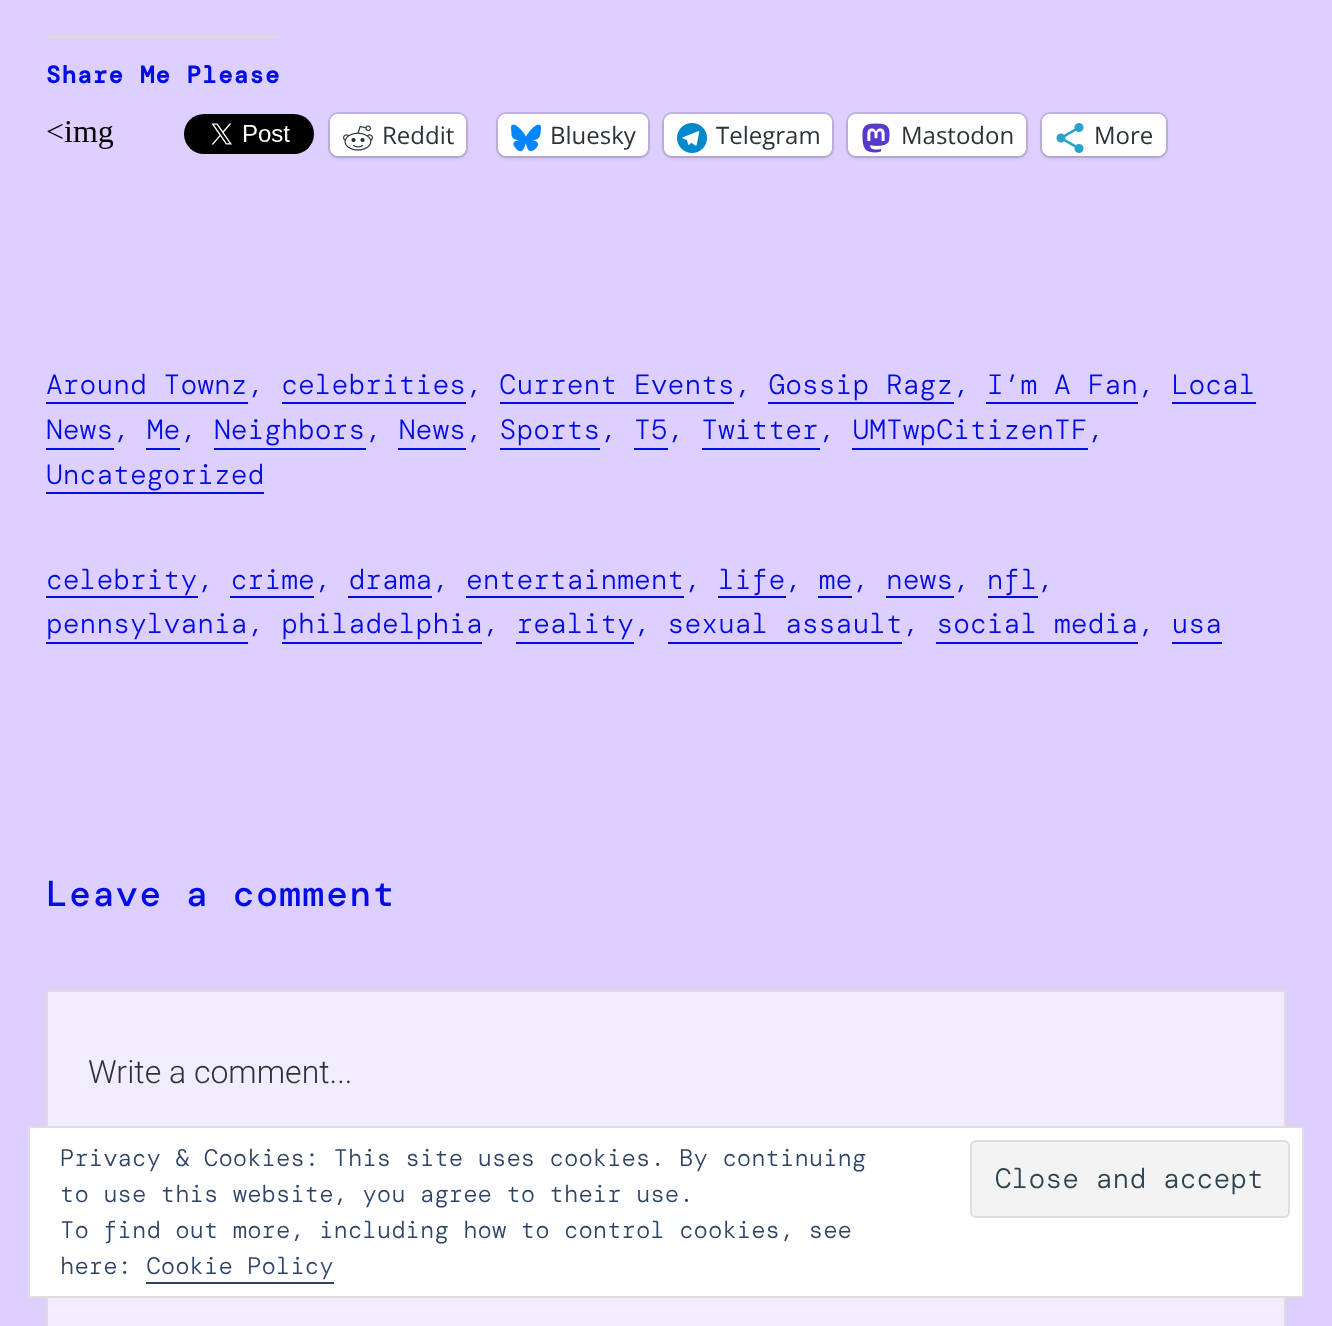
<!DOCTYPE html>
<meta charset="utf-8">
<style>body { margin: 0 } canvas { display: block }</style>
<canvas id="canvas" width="1332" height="1326"></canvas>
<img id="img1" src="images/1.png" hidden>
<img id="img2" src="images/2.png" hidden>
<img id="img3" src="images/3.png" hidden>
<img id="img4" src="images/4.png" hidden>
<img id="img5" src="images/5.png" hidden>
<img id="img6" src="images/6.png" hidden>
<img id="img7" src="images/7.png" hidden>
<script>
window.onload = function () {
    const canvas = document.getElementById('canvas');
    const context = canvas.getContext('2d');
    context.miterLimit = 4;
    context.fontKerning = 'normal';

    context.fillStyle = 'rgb(221, 207, 255)';
    context.fillRect(0, 0, 1332, 1326);
    context.fillStyle = 'rgb(220, 220, 222)';
    context.fillRect(46, 36, 234, 2);
    context.drawImage(document.getElementById('img1'), 47, 121, 67, 28);
    context.drawImage(document.getElementById('img2'), 184, 114, 130, 40);
    context.beginPath();
    context.roundRect(329, 113, 138, 44, 9);
    context.strokeStyle = 'rgb(194, 182, 224)';
    context.lineWidth = 2;
    context.stroke();
    context.fillStyle = 'rgba(0, 0, 0, 0.12)';
    context.filter = 'blur(2px)';
    context.beginPath();
    context.roundRect(330, 116, 136, 42, 8);
    context.fill();
    context.filter = 'none';
    context.fillStyle = 'rgb(255, 255, 255)';
    context.beginPath();
    context.roundRect(330, 114, 136, 42, 8);
    context.fill();
    context.drawImage(document.getElementById('img3'), 343, 125, 30, 26);
    context.beginPath();
    context.roundRect(497, 113, 152, 44, 9);
    context.stroke();
    context.fillStyle = 'rgba(0, 0, 0, 0.12)';
    context.filter = 'blur(2px)';
    context.beginPath();
    context.roundRect(498, 116, 150, 42, 8);
    context.fill();
    context.filter = 'none';
    context.fillStyle = 'rgb(255, 255, 255)';
    context.beginPath();
    context.roundRect(498, 114, 150, 42, 8);
    context.fill();
    context.drawImage(document.getElementById('img4'), 511, 124, 30, 28);
    context.beginPath();
    context.roundRect(663, 113, 170, 44, 9);
    context.stroke();
    context.fillStyle = 'rgba(0, 0, 0, 0.12)';
    context.filter = 'blur(2px)';
    context.beginPath();
    context.roundRect(664, 116, 168, 42, 8);
    context.fill();
    context.filter = 'none';
    context.fillStyle = 'rgb(255, 255, 255)';
    context.beginPath();
    context.roundRect(664, 114, 168, 42, 8);
    context.fill();
    context.drawImage(document.getElementById('img5'), 677, 123, 30, 30);
    context.beginPath();
    context.roundRect(847, 113, 180, 44, 9);
    context.stroke();
    context.fillStyle = 'rgba(0, 0, 0, 0.12)';
    context.filter = 'blur(2px)';
    context.beginPath();
    context.roundRect(848, 116, 178, 42, 8);
    context.fill();
    context.filter = 'none';
    context.fillStyle = 'rgb(255, 255, 255)';
    context.beginPath();
    context.roundRect(848, 114, 178, 42, 8);
    context.fill();
    context.drawImage(document.getElementById('img6'), 862, 123, 28, 30);
    context.beginPath();
    context.roundRect(1041, 113, 126, 44, 9);
    context.stroke();
    context.fillStyle = 'rgba(0, 0, 0, 0.12)';
    context.filter = 'blur(2px)';
    context.beginPath();
    context.roundRect(1042, 116, 124, 42, 8);
    context.fill();
    context.filter = 'none';
    context.fillStyle = 'rgb(255, 255, 255)';
    context.beginPath();
    context.roundRect(1042, 114, 124, 42, 8);
    context.fill();
    context.drawImage(document.getElementById('img7'), 1056, 123, 28, 30);
    context.fillStyle = 'rgb(4, 13, 225)';
    context.fillRect(46, 402, 202, 2);
    context.fillRect(282, 402, 184, 2);
    context.fillRect(500, 402, 234, 2);
    context.fillRect(768, 402, 186, 2);
    context.fillRect(986, 402, 152, 2);
    context.fillRect(1172, 402, 84, 2);
    context.fillRect(46, 448, 68, 2);
    context.fillRect(146, 448, 34, 2);
    context.fillRect(214, 448, 152, 2);
    context.fillRect(398, 448, 68, 2);
    context.fillRect(500, 448, 100, 2);
    context.fillRect(634, 448, 34, 2);
    context.fillRect(702, 448, 118, 2);
    context.fillRect(852, 448, 236, 2);
    context.fillRect(46, 492, 218, 2);
    context.fillRect(46, 596, 152, 2);
    context.fillRect(230, 596, 84, 2);
    context.fillRect(348, 596, 84, 2);
    context.fillRect(466, 596, 218, 2);
    context.fillRect(718, 596, 68, 2);
    context.fillRect(818, 596, 34, 2);
    context.fillRect(886, 596, 68, 2);
    context.fillRect(988, 596, 50, 2);
    context.fillRect(46, 642, 202, 2);
    context.fillRect(282, 642, 200, 2);
    context.fillRect(516, 642, 118, 2);
    context.fillRect(668, 642, 234, 2);
    context.fillRect(936, 642, 202, 2);
    context.fillRect(1172, 642, 50, 2);
    context.fillStyle = 'rgb(242, 236, 255)';
    context.beginPath();
    context.rect(47, 991, 1238, 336);
    context.fill();
    context.strokeStyle = 'rgb(220, 220, 222)';
    context.stroke();
    context.fillStyle = 'rgb(255, 255, 255)';
    context.beginPath();
    context.rect(29, 1127, 1274, 170);
    context.fill();
    context.strokeStyle = 'rgb(222, 222, 222)';
    context.stroke();
    context.fillStyle = 'rgb(243, 243, 243)';
    context.beginPath();
    context.roundRect(971, 1141, 318, 76, 5);
    context.fill();
    context.stroke();
    context.fillStyle = 'rgb(46, 68, 103)';
    context.fillRect(146, 1282, 188, 2);
    context.letterSpacing = '1.25px';
    context.font = 'bold 24px DM Mono';
    context.fillStyle = 'rgb(4, 13, 225)';
    context.fillText('Share Me Please', 46, 83);
    context.letterSpacing = '0px';
    context.font = '24px Open Sans';
    context.fillStyle = 'rgb(44, 51, 56)';
    context.fillText('Reddit', 382, 144);
    context.fillText('Bluesky', 550, 144);
    context.fillText('Telegram', 716, 144);
    context.fillText('Mastodon', 901, 144);
    context.fillText('More', 1094, 144);
    context.font = '300 28px DM Mono';
    context.fillStyle = 'rgb(4, 13, 225)';
    context.fillText('Around Townz, celebrities, Current Events, Gossip Ragz, I’m A Fan, Local', 46, 394);
    context.fillText('News, Me, Neighbors, News, Sports, T5, Twitter, UMTwpCitizenTF,', 46, 439);
    context.fillText('Uncategorized', 46, 484);
    context.fillText('celebrity, crime, drama, entertainment, life, me, news, nfl,', 46, 589);
    context.fillText('pennsylvania, philadelphia, reality, sexual assault, social media, usa', 46, 633);
    context.letterSpacing = '1.75px';
    context.font = '500 36px DM Mono';
    context.fillText('Leave a comment', 46, 906);
    context.letterSpacing = '0px';
    context.font = '300 32px Roboto';
    context.fillStyle = 'rgb(44, 51, 56)';
    context.fillText('Write a comment...', 88, 1083);
    context.font = '300 24px DM Mono';
    context.fillStyle = 'rgb(46, 68, 103)';
    context.fillText('Privacy & Cookies: This site uses cookies. By continuing', 60, 1166);
    context.fillText('to use this website, you agree to their use.', 60, 1202);
    context.font = '300 28px DM Mono';
    context.fillStyle = 'rgb(46, 68, 83)';
    context.fillText('Close and accept', 995, 1188);
    context.font = '300 24px DM Mono';
    context.fillStyle = 'rgb(46, 68, 103)';
    context.fillText('To find out more, including how to control cookies, see', 60, 1238);
    context.fillText('here: Cookie Policy', 60, 1274);
};
</script>
